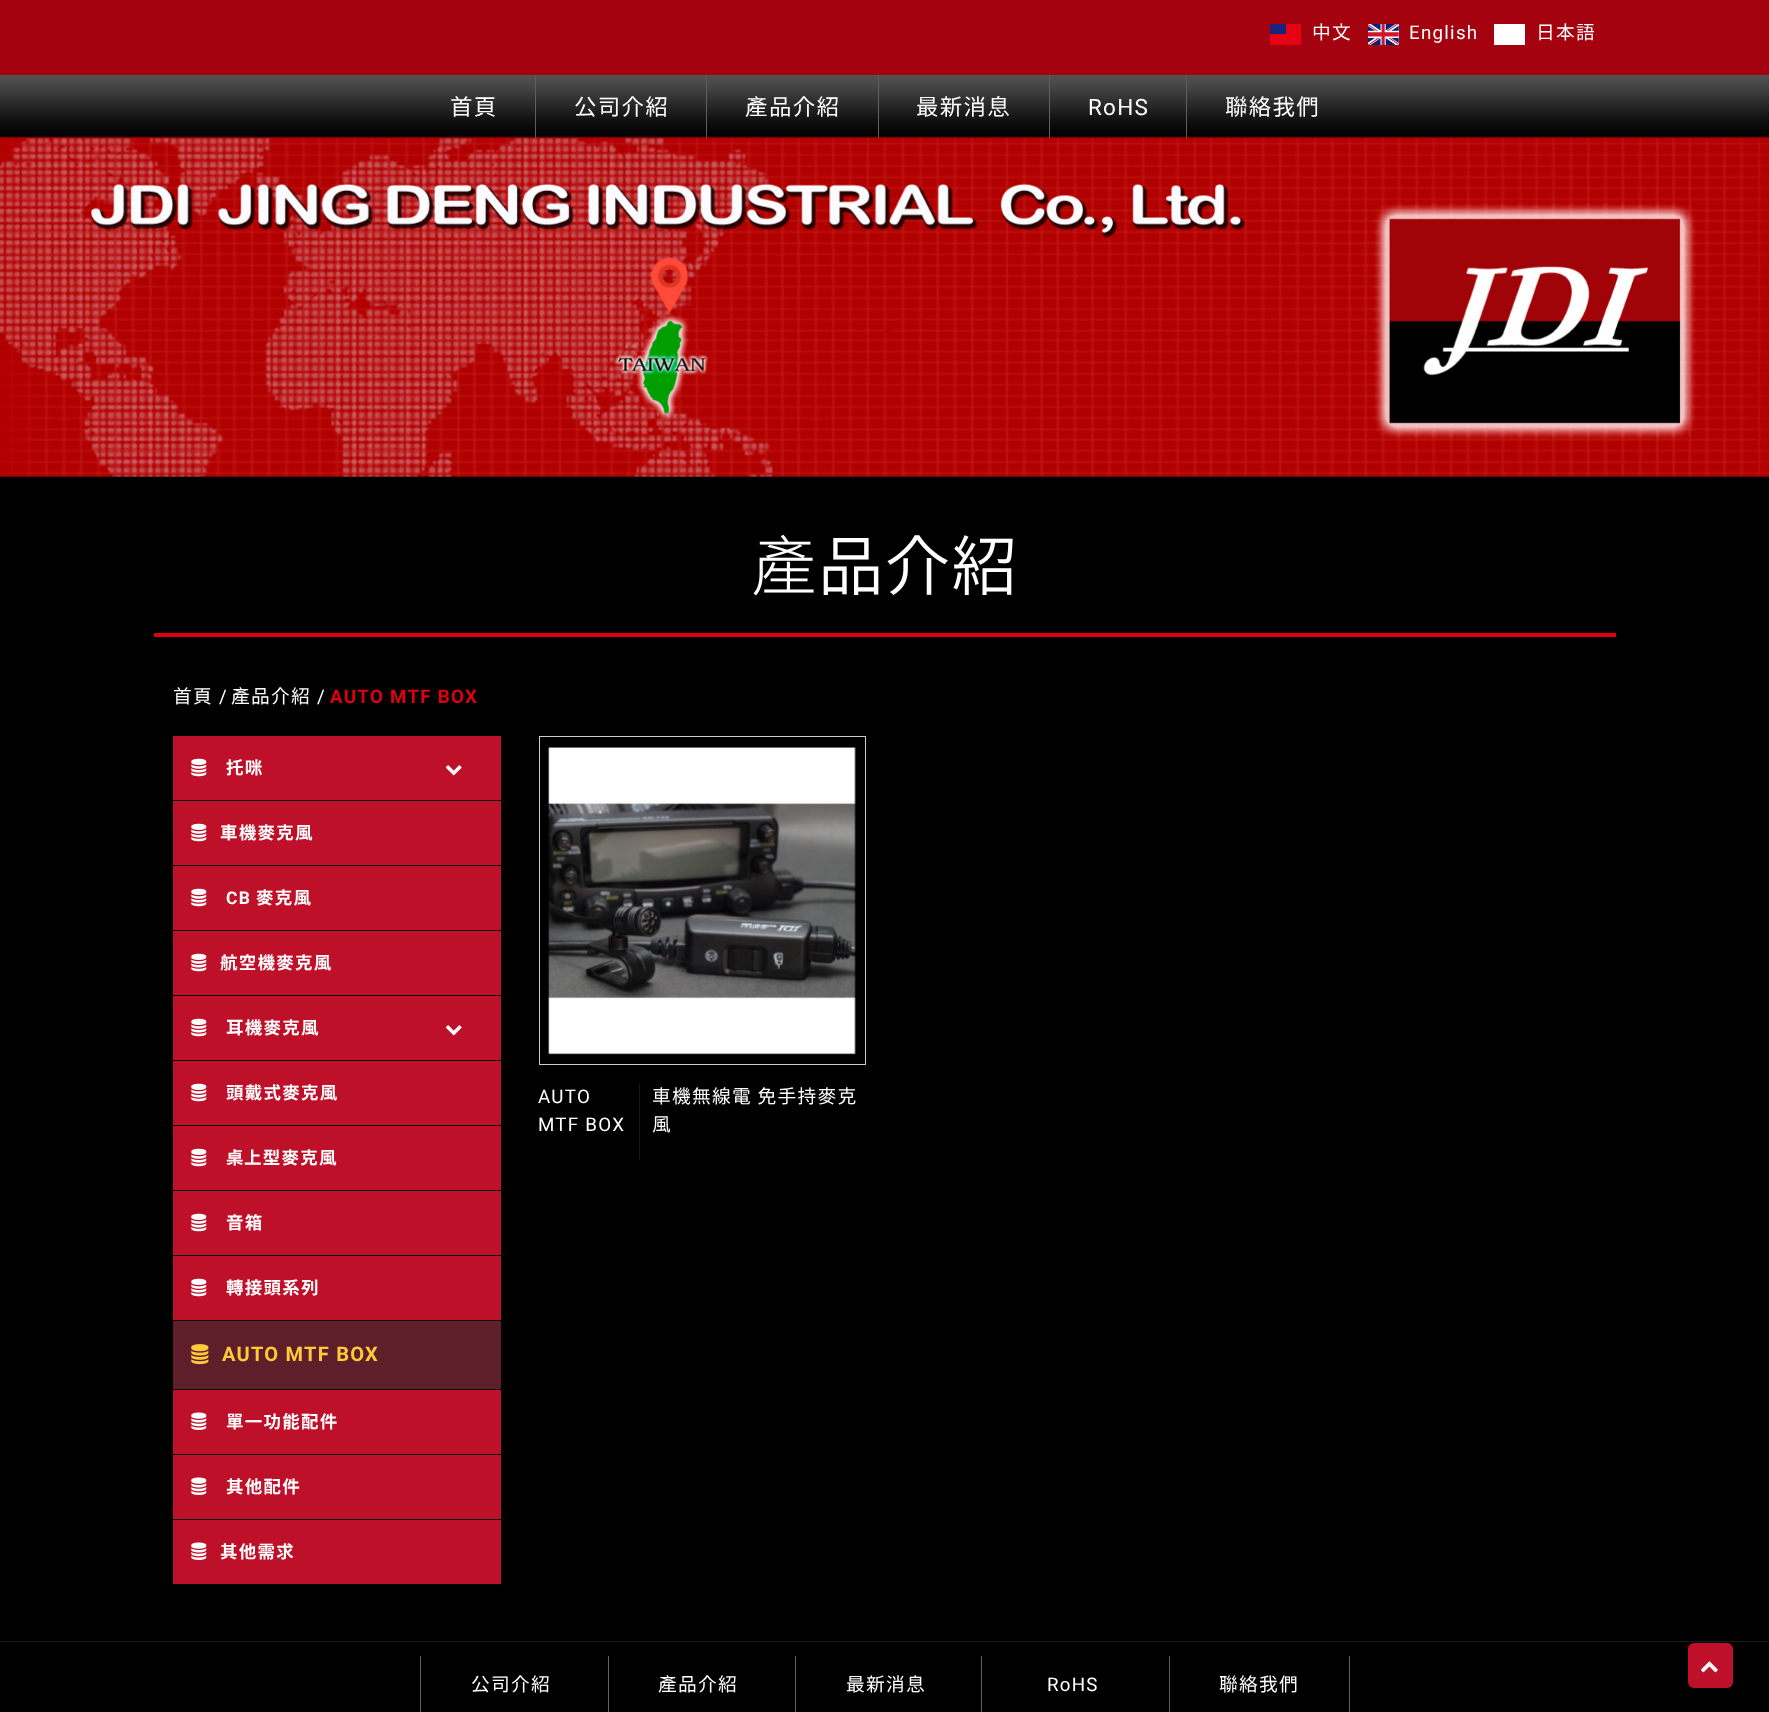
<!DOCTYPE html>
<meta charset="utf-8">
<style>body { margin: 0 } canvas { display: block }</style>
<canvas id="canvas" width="1769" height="1712"></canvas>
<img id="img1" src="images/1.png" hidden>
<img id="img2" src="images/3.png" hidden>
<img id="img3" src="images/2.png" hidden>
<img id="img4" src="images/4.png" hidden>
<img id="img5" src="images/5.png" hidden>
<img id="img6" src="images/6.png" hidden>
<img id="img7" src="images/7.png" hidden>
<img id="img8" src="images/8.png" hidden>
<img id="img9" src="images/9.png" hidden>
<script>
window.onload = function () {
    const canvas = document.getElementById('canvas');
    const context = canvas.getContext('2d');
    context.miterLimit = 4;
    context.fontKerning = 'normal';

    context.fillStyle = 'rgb(0, 0, 0)';
    context.fillRect(0, 0, 1769, 1712);
    context.fillStyle = 'rgb(164, 2, 14)';
    context.fillRect(0, 0, 1769, 75);
    context.fillStyle = 'rgb(230, 2, 18)';
    context.fillRect(1270, 24, 31, 21);
    context.fillStyle = 'rgb(26, 34, 128)';
    context.fillRect(1270, 24, 16, 10);
    context.drawImage(document.getElementById('img1'), 1368, 24, 31, 21);
    context.fillStyle = 'rgb(255, 255, 255)';
    context.fillRect(1494, 24, 31, 21);
    context.drawImage(document.getElementById('img2'), 0, 137, 1769, 340);
    context.drawImage(document.getElementById('img3'), 0, 75, 1769, 63);
    context.fillStyle = 'rgb(95, 95, 95)';
    context.fillRect(535, 75, 1, 63);
    context.fillRect(706, 75, 1, 63);
    context.fillRect(878, 75, 1, 63);
    context.fillRect(1049, 75, 1, 63);
    context.fillRect(1186, 75, 1, 63);
    context.fillStyle = 'rgb(222, 0, 16)';
    context.fillRect(154, 633, 1462, 4);
    context.fillStyle = 'rgb(190, 16, 41)';
    context.fillRect(173, 736, 328, 848);
    context.fillStyle = 'rgb(10, 2, 0)';
    context.fillRect(173, 800, 328, 1);
    context.drawImage(document.getElementById('img4'), 191, 758, 16, 19);
    context.drawImage(document.getElementById('img5'), 445, 765, 17, 11);
    context.fillRect(173, 865, 328, 1);
    context.drawImage(document.getElementById('img4'), 191, 823, 16, 19);
    context.fillRect(173, 930, 328, 1);
    context.drawImage(document.getElementById('img4'), 191, 888, 16, 19);
    context.fillRect(173, 995, 328, 1);
    context.drawImage(document.getElementById('img4'), 191, 953, 16, 19);
    context.fillRect(173, 1060, 328, 1);
    context.drawImage(document.getElementById('img4'), 191, 1018, 16, 19);
    context.drawImage(document.getElementById('img5'), 445, 1025, 17, 11);
    context.fillRect(173, 1125, 328, 1);
    context.drawImage(document.getElementById('img4'), 191, 1083, 16, 19);
    context.fillRect(173, 1190, 328, 1);
    context.drawImage(document.getElementById('img4'), 191, 1148, 16, 19);
    context.fillRect(173, 1255, 328, 1);
    context.drawImage(document.getElementById('img4'), 191, 1213, 16, 19);
    context.fillRect(173, 1320, 328, 1);
    context.drawImage(document.getElementById('img4'), 191, 1278, 16, 19);
    context.fillStyle = 'rgb(94, 31, 42)';
    context.fillRect(173, 1321, 328, 68);
    context.fillStyle = 'rgb(10, 2, 0)';
    context.fillRect(173, 1389, 328, 1);
    context.drawImage(document.getElementById('img6'), 191, 1344, 18, 21);
    context.fillRect(173, 1454, 328, 1);
    context.drawImage(document.getElementById('img7'), 191, 1412, 16, 18);
    context.fillRect(173, 1519, 328, 1);
    context.drawImage(document.getElementById('img7'), 191, 1477, 16, 18);
    context.fillRect(173, 1584, 328, 1);
    context.drawImage(document.getElementById('img7'), 191, 1542, 16, 18);
    context.strokeStyle = 'rgb(204, 204, 204)';
    context.strokeRect(539.5, 736.5, 326, 328);
    context.drawImage(document.getElementById('img8'), 548, 747, 308, 308);
    context.fillStyle = 'rgb(35, 24, 21)';
    context.fillRect(639, 1084, 1, 75);
    context.fillStyle = 'rgb(27, 26, 26)';
    context.fillRect(0, 1641, 1769, 1);
    context.fillStyle = 'rgb(95, 95, 95)';
    context.fillRect(420, 1656, 1, 56);
    context.fillRect(608, 1656, 1, 56);
    context.fillRect(795, 1656, 1, 56);
    context.fillRect(981, 1656, 1, 56);
    context.fillRect(1349, 1656, 1, 56);
    context.fillRect(1169, 1656, 1, 56);
    context.fillStyle = 'rgb(190, 16, 41)';
    context.beginPath();
    context.roundRect(1688, 1643, 45, 45, 6);
    context.fill();
    context.drawImage(document.getElementById('img9'), 1701, 1661, 17, 12);
    context.letterSpacing = '1.25px';
    context.font = '18.75px Noto Sans JP';
    context.fillStyle = 'rgb(255, 255, 255)';
    context.fillText('中文', 1312, 39);
    context.font = '18.75px Roboto';
    context.fillText('English', 1409, 39);
    context.font = '18.75px Noto Sans JP';
    context.fillText('日本語', 1536, 39);
    context.font = '22.5px Noto Sans JP';
    context.fillText('首頁', 450, 115);
    context.fillText('公司介紹', 574, 115);
    context.font = '22.5px Noto Sans TC';
    context.fillText('產', 745, 115);
    context.font = '22.5px Noto Sans JP';
    context.fillText('品介紹', 769, 115);
    context.fillText('最新消息', 916, 115);
    context.font = '22.5px Roboto';
    context.fillText('RoHS', 1088, 115);
    context.font = '22.5px Noto Sans JP';
    context.fillText('聯絡我們', 1225, 115);
    context.font = '300 65.5px Noto Sans TC';
    context.fillText('產', 751, 590);
    context.font = '300 65.5px Noto Sans JP';
    context.fillText('品介紹', 818, 590);
    context.font = '18.75px Noto Sans JP';
    context.fillText('首頁', 173, 703);
    context.font = '18.75px Roboto';
    context.fillText('/', 219, 703);
    context.font = '18.75px Noto Sans TC';
    context.fillText('產', 231, 703);
    context.font = '18.75px Noto Sans JP';
    context.fillText('品介紹', 251, 703);
    context.font = '18.75px Roboto';
    context.fillText('/', 317, 703);
    context.font = 'bold 18.75px Roboto';
    context.fillStyle = 'rgb(222, 0, 16)';
    context.fillText('AUTO MTF BOX', 330, 703);
    context.font = 'bold 17.5px Noto Sans TC';
    context.fillStyle = 'rgb(255, 255, 255)';
    context.fillText('托咪', 226, 774);
    context.font = 'bold 17.5px Noto Sans JP';
    context.fillText('車機麥克風', 220, 839);
    context.font = 'bold 17.5px Roboto';
    context.fillText('CB', 226, 904);
    context.font = 'bold 17.5px Noto Sans JP';
    context.fillText('麥克風', 256, 904);
    context.fillText('航空機麥克風', 220, 969);
    context.fillText('耳機麥克風', 226, 1034);
    context.fillText('頭戴式麥克風', 226, 1099);
    context.font = 'bold 17.5px Noto Sans TC';
    context.fillText('桌', 226, 1164);
    context.font = 'bold 17.5px Noto Sans JP';
    context.fillText('上型麥克風', 244, 1164);
    context.fillText('音箱', 226, 1229);
    context.fillText('轉接頭系列', 226, 1294);
    context.font = 'bold 20px Roboto';
    context.fillStyle = 'rgb(255, 203, 58)';
    context.fillText('AUTO MTF BOX', 222, 1361);
    context.font = 'bold 17.5px Noto Sans JP';
    context.fillStyle = 'rgb(255, 255, 255)';
    context.fillText('單一功能配件', 226, 1428);
    context.fillText('其他配件', 226, 1493);
    context.fillText('其他需求', 220, 1558);
    context.font = '18.75px Roboto';
    context.fillText('AUTO', 538, 1103);
    context.fillText('MTF BOX', 538, 1131);
    context.font = '18.75px Noto Sans JP';
    context.fillText('車機無線電 免手持麥克', 652, 1103);
    context.fillText('風', 652, 1131);
    context.fillText('公司介紹', 471, 1691);
    context.font = '18.75px Noto Sans TC';
    context.fillText('產', 658, 1691);
    context.font = '18.75px Noto Sans JP';
    context.fillText('品介紹', 678, 1691);
    context.fillText('最新消息', 846, 1691);
    context.font = '18.75px Roboto';
    context.fillText('RoHS', 1047, 1691);
    context.font = '18.75px Noto Sans JP';
    context.fillText('聯絡我們', 1219, 1691);
};
</script>
